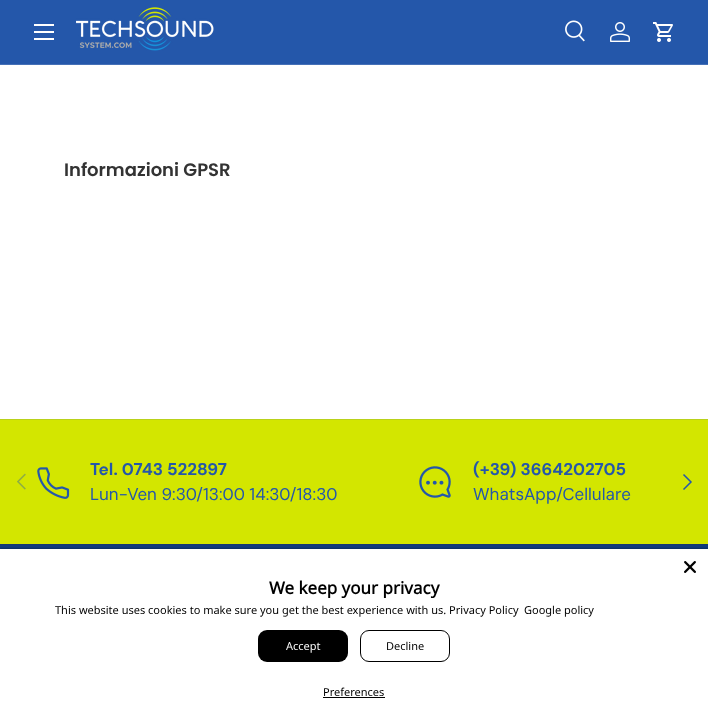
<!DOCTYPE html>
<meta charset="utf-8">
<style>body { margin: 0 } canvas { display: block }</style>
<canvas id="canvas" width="708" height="720"></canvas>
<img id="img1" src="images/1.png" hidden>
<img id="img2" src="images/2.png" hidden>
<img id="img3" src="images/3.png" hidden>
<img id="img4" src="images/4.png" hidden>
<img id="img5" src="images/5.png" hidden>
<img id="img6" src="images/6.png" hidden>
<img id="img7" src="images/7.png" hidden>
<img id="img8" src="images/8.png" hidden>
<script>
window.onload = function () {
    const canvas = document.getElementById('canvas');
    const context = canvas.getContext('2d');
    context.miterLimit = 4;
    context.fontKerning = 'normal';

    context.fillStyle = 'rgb(255, 255, 255)';
    context.fillRect(0, 0, 708, 720);
    context.fillStyle = 'rgb(36, 87, 170)';
    context.fillRect(0, 0, 708, 64);
    context.fillStyle = 'rgb(69, 112, 183)';
    context.fillRect(0, 64, 708, 1);
    context.fillStyle = 'rgb(255, 255, 255)';
    context.fillRect(34, 24, 20, 2);
    context.fillRect(34, 38, 20, 2);
    context.fillRect(34, 31, 20, 2);
    context.drawImage(document.getElementById('img1'), 76, 7, 138, 44);
    context.drawImage(document.getElementById('img2'), 565, 20, 20, 22);
    context.drawImage(document.getElementById('img3'), 610, 22, 20, 20);
    context.drawImage(document.getElementById('img4'), 653, 22, 20, 20);
    context.fillStyle = 'rgb(211, 230, 0)';
    context.fillRect(0, 420, 708, 124);
    context.fillStyle = 'rgb(185, 209, 26)';
    context.fillRect(0, 419, 708, 1);
    context.drawImage(document.getElementById('img5'), 37, 467, 33, 32);
    context.drawImage(document.getElementById('img6'), 419, 466, 32, 32);
    context.drawImage(document.getElementById('img7'), 17, 473, 9, 17);
    context.beginPath();
    context.moveTo(683.5, 474.5);
    context.lineTo(691, 482);
    context.lineTo(683.5, 489.5);
    context.strokeStyle = 'rgb(36, 87, 170)';
    context.lineWidth = 1.5;
    context.stroke();
    context.fillStyle = 'rgb(16, 58, 125)';
    context.fillRect(0, 545, 708, 4);
    context.fillStyle = 'rgb(20, 56, 113)';
    context.fillRect(0, 544, 708, 1);
    context.fillStyle = 'rgba(0, 0, 0, 0.5)';
    context.filter = 'blur(1px)';
    context.beginPath();
    context.rect(0, 549, 708, 171);
    context.fill();
    context.filter = 'none';
    context.fillStyle = 'rgb(255, 255, 255)';
    context.fillRect(0, 549, 708, 171);
    context.drawImage(document.getElementById('img8'), 684, 561, 12, 12);
    context.fillStyle = 'rgb(0, 0, 0)';
    context.beginPath();
    context.roundRect(258, 630, 90, 32, 9);
    context.fill();
    context.beginPath();
    context.roundRect(360.5, 630.5, 89, 31, 8.5);
    context.strokeStyle = 'rgb(0, 0, 0)';
    context.lineWidth = 1;
    context.stroke();
    context.fillRect(323, 697, 62, 1);
    context.font = '600 18px Poppins';
    context.fillStyle = 'rgb(51, 51, 51)';
    context.fillText('Informazioni GPSR', 64, 176);
    context.font = 'bold 17px DM Sans';
    context.fillStyle = 'rgb(36, 87, 170)';
    context.fillText('Tel. 0743 522897', 90, 475);
    context.font = '17px DM Sans';
    context.fillText('Lun-Ven 9:30/13:00 14:30/18:30', 90, 500);
    context.font = 'bold 17px DM Sans';
    context.fillText('(+39) 3664202705', 473, 475);
    context.font = '17px DM Sans';
    context.fillText('WhatsApp/Cellulare', 473, 500);
    context.font = 'bold 17px Noto Sans';
    context.fillStyle = 'rgb(0, 0, 0)';
    context.fillText('We keep your privacy', 269, 594);
    context.font = '11px Noto Sans';
    context.fillText('This website uses cookies to make sure you get the best experience with us. Privacy Policy', 55, 614);
    context.fillText('Google policy', 524, 614);
    context.fillStyle = 'rgb(248, 248, 248)';
    context.fillText('Accept', 286, 650);
    context.fillStyle = 'rgb(0, 0, 0)';
    context.fillText('Decline', 386, 650);
    context.fillText('Preferences', 323, 696);
};
</script>
